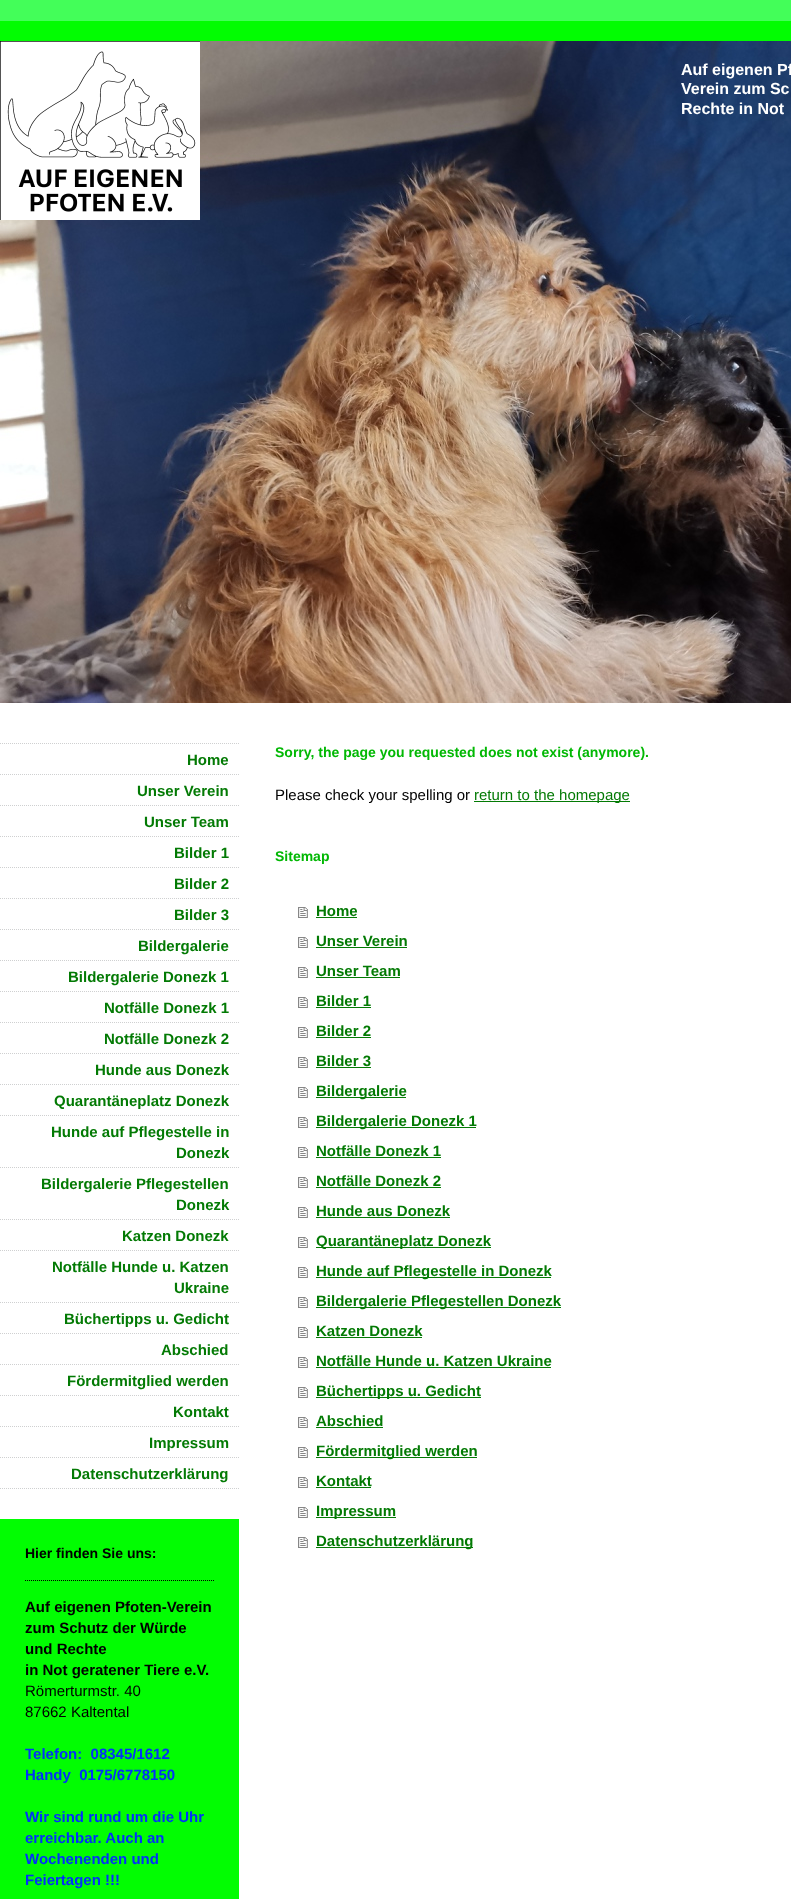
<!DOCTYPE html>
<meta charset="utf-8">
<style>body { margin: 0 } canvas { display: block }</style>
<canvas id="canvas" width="791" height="1899"></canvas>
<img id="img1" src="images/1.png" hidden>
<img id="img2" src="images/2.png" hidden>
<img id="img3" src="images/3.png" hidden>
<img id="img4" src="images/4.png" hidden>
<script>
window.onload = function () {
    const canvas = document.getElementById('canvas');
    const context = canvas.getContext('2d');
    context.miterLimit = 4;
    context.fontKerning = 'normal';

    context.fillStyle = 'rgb(67, 254, 89)';
    context.fillRect(0, 0, 791, 1899);
    context.fillStyle = 'rgb(2, 253, 2)';
    context.fillRect(0, 1519, 239, 380);
    context.fillStyle = 'rgb(255, 255, 255)';
    context.fillRect(239, 743, 552, 1156);
    context.fillRect(0, 703, 791, 40);
    context.fillStyle = 'rgb(2, 253, 2)';
    context.fillRect(0, 21, 791, 20);
    context.drawImage(document.getElementById('img1'), 0, 41, 791, 662);
    context.drawImage(document.getElementById('img2'), 0, 41, 200, 179);
    context.fillStyle = 'rgb(255, 255, 255)';
    context.fillRect(0, 1489, 239, 30);
    context.drawImage(document.getElementById('img3'), 0, 743, 239, 1);
    context.fillRect(0, 744, 239, 30);
    context.drawImage(document.getElementById('img3'), 0, 774, 239, 1);
    context.fillRect(0, 775, 239, 30);
    context.drawImage(document.getElementById('img3'), 0, 805, 239, 1);
    context.fillRect(0, 806, 239, 30);
    context.drawImage(document.getElementById('img3'), 0, 836, 239, 1);
    context.fillRect(0, 837, 239, 30);
    context.drawImage(document.getElementById('img3'), 0, 867, 239, 1);
    context.fillRect(0, 868, 239, 30);
    context.drawImage(document.getElementById('img3'), 0, 898, 239, 1);
    context.fillRect(0, 899, 239, 30);
    context.drawImage(document.getElementById('img3'), 0, 929, 239, 1);
    context.fillRect(0, 930, 239, 30);
    context.drawImage(document.getElementById('img3'), 0, 960, 239, 1);
    context.fillRect(0, 961, 239, 30);
    context.drawImage(document.getElementById('img3'), 0, 991, 239, 1);
    context.fillRect(0, 992, 239, 30);
    context.drawImage(document.getElementById('img3'), 0, 1022, 239, 1);
    context.fillRect(0, 1023, 239, 30);
    context.drawImage(document.getElementById('img3'), 0, 1053, 239, 1);
    context.fillRect(0, 1054, 239, 30);
    context.drawImage(document.getElementById('img3'), 0, 1084, 239, 1);
    context.fillRect(0, 1085, 239, 30);
    context.drawImage(document.getElementById('img3'), 0, 1115, 239, 1);
    context.fillRect(0, 1116, 239, 51);
    context.drawImage(document.getElementById('img3'), 0, 1167, 239, 1);
    context.fillRect(0, 1168, 239, 51);
    context.drawImage(document.getElementById('img3'), 0, 1219, 239, 1);
    context.fillRect(0, 1220, 239, 30);
    context.drawImage(document.getElementById('img3'), 0, 1250, 239, 1);
    context.fillRect(0, 1251, 239, 51);
    context.drawImage(document.getElementById('img3'), 0, 1302, 239, 1);
    context.fillRect(0, 1303, 239, 30);
    context.drawImage(document.getElementById('img3'), 0, 1333, 239, 1);
    context.fillRect(0, 1334, 239, 30);
    context.drawImage(document.getElementById('img3'), 0, 1364, 239, 1);
    context.fillRect(0, 1365, 239, 30);
    context.drawImage(document.getElementById('img3'), 0, 1395, 239, 1);
    context.fillRect(0, 1396, 239, 30);
    context.drawImage(document.getElementById('img3'), 0, 1426, 239, 1);
    context.fillRect(0, 1427, 239, 30);
    context.drawImage(document.getElementById('img3'), 0, 1457, 239, 1);
    context.fillRect(0, 1458, 239, 30);
    context.drawImage(document.getElementById('img3'), 0, 1488, 239, 1);
    context.beginPath();
    context.moveTo(25, 1580.5);
    context.lineTo(214, 1580.5);
    context.strokeStyle = 'rgb(0, 0, 0)';
    context.setLineDash([1, 1]);
    context.stroke();
    context.fillStyle = 'rgb(3, 122, 4)';
    context.fillRect(474, 801, 156, 1);
    context.drawImage(document.getElementById('img4'), 298, 907, 10, 11);
    context.fillRect(316, 917, 41, 1);
    context.drawImage(document.getElementById('img4'), 298, 937, 10, 11);
    context.fillRect(316, 947, 91, 1);
    context.drawImage(document.getElementById('img4'), 298, 967, 10, 11);
    context.fillRect(316, 977, 84, 1);
    context.drawImage(document.getElementById('img4'), 298, 997, 10, 11);
    context.fillRect(316, 1007, 55, 1);
    context.drawImage(document.getElementById('img4'), 298, 1027, 10, 11);
    context.fillRect(316, 1037, 55, 1);
    context.drawImage(document.getElementById('img4'), 298, 1057, 10, 11);
    context.fillRect(316, 1067, 55, 1);
    context.drawImage(document.getElementById('img4'), 298, 1087, 10, 11);
    context.fillRect(316, 1097, 90, 1);
    context.drawImage(document.getElementById('img4'), 298, 1117, 10, 11);
    context.fillRect(316, 1127, 160, 1);
    context.drawImage(document.getElementById('img4'), 298, 1147, 10, 11);
    context.fillRect(316, 1157, 125, 1);
    context.drawImage(document.getElementById('img4'), 298, 1177, 10, 11);
    context.fillRect(316, 1187, 125, 1);
    context.drawImage(document.getElementById('img4'), 298, 1207, 10, 11);
    context.fillRect(316, 1217, 134, 1);
    context.drawImage(document.getElementById('img4'), 298, 1237, 10, 11);
    context.fillRect(316, 1247, 175, 1);
    context.drawImage(document.getElementById('img4'), 298, 1267, 10, 11);
    context.fillRect(316, 1277, 235, 1);
    context.drawImage(document.getElementById('img4'), 298, 1297, 10, 11);
    context.fillRect(316, 1307, 245, 1);
    context.drawImage(document.getElementById('img4'), 298, 1327, 10, 11);
    context.fillRect(316, 1337, 106, 1);
    context.drawImage(document.getElementById('img4'), 298, 1357, 10, 11);
    context.fillRect(316, 1367, 235, 1);
    context.drawImage(document.getElementById('img4'), 298, 1387, 10, 11);
    context.fillRect(316, 1397, 165, 1);
    context.drawImage(document.getElementById('img4'), 298, 1417, 10, 11);
    context.fillRect(316, 1427, 67, 1);
    context.drawImage(document.getElementById('img4'), 298, 1447, 10, 11);
    context.fillRect(316, 1457, 161, 1);
    context.drawImage(document.getElementById('img4'), 298, 1477, 10, 11);
    context.fillRect(316, 1487, 55, 1);
    context.drawImage(document.getElementById('img4'), 298, 1507, 10, 11);
    context.fillRect(316, 1517, 80, 1);
    context.drawImage(document.getElementById('img4'), 298, 1537, 10, 11);
    context.fillRect(316, 1547, 157, 1);
    context.font = 'bold 16px Liberation Sans';
    context.fillStyle = 'rgb(255, 255, 255)';
    context.fillText('Auf eigenen Pf', 681, 75);
    context.fillText('Verein zum Sc', 681, 94);
    context.fillText('Rechte in Not', 681, 114);
    context.font = 'bold 15px Liberation Sans';
    context.fillStyle = 'rgb(3, 122, 4)';
    context.fillText('Home', 187, 765);
    context.fillText('Unser Verein', 137, 796);
    context.fillText('Unser Team', 144, 827);
    context.fillText('Bilder 1', 174, 858);
    context.fillText('Bilder 2', 174, 889);
    context.fillText('Bilder 3', 174, 920);
    context.fillText('Bildergalerie', 138, 951);
    context.fillText('Bildergalerie Donezk 1', 68, 982);
    context.fillText('Notfälle Donezk 1', 104, 1013);
    context.fillText('Notfälle Donezk 2', 104, 1044);
    context.fillText('Hunde aus Donezk', 95, 1075);
    context.fillText('Quarantäneplatz Donezk', 54, 1106);
    context.fillText('Hunde auf Pflegestelle in', 51, 1137);
    context.fillText('Donezk', 176, 1158);
    context.fillText('Bildergalerie Pflegestellen', 41, 1189);
    context.fillText('Donezk', 176, 1210);
    context.fillText('Katzen Donezk', 122, 1241);
    context.fillText('Notfälle Hunde u. Katzen', 52, 1272);
    context.fillText('Ukraine', 174, 1293);
    context.fillText('Büchertipps u. Gedicht', 64, 1324);
    context.fillText('Abschied', 161, 1355);
    context.fillText('Fördermitglied werden', 67, 1386);
    context.fillText('Kontakt', 173, 1417);
    context.fillText('Impressum', 149, 1448);
    context.fillText('Datenschutzerklärung', 71, 1479);
    context.font = 'bold 14px Liberation Sans';
    context.fillStyle = 'rgb(0, 0, 0)';
    context.fillText('Hier finden Sie uns:', 25, 1558);
    context.font = 'bold 15px Liberation Sans';
    context.fillText('Auf eigenen Pfoten-Verein', 25, 1612);
    context.fillText('zum Schutz der Würde', 25, 1633);
    context.fillText('und Rechte', 25, 1654);
    context.fillText('in Not geratener Tiere e.V.', 25, 1675);
    context.font = '15px Liberation Sans';
    context.fillText('Römerturmstr. 40', 25, 1696);
    context.fillText('87662 Kaltental', 25, 1717);
    context.font = 'bold 15px Liberation Sans';
    context.fillStyle = 'rgb(2, 49, 249)';
    context.fillText('Telefon:  08345/1612', 25, 1759);
    context.fillText('Handy  0175/6778150', 25, 1780);
    context.fillText('Wir sind rund um die Uhr', 25, 1822);
    context.fillText('erreichbar. Auch an', 25, 1843);
    context.fillText('Wochenenden und', 25, 1864);
    context.fillText('Feiertagen !!!', 25, 1885);
    context.font = 'bold 14px Liberation Sans';
    context.fillStyle = 'rgb(2, 184, 4)';
    context.fillText('Sorry, the page you requested does not exist (anymore).', 275, 757);
    context.font = '15px Liberation Sans';
    context.fillStyle = 'rgb(0, 0, 0)';
    context.fillText('Please check your spelling or', 275, 800);
    context.fillStyle = 'rgb(3, 122, 4)';
    context.fillText('return to the homepage', 474, 800);
    context.font = 'bold 14px Liberation Sans';
    context.fillStyle = 'rgb(2, 184, 4)';
    context.fillText('Sitemap', 275, 861);
    context.font = 'bold 15px Liberation Sans';
    context.fillStyle = 'rgb(3, 122, 4)';
    context.fillText('Home', 316, 916);
    context.fillText('Unser Verein', 316, 946);
    context.fillText('Unser Team', 316, 976);
    context.fillText('Bilder 1', 316, 1006);
    context.fillText('Bilder 2', 316, 1036);
    context.fillText('Bilder 3', 316, 1066);
    context.fillText('Bildergalerie', 316, 1096);
    context.fillText('Bildergalerie Donezk 1', 316, 1126);
    context.fillText('Notfälle Donezk 1', 316, 1156);
    context.fillText('Notfälle Donezk 2', 316, 1186);
    context.fillText('Hunde aus Donezk', 316, 1216);
    context.fillText('Quarantäneplatz Donezk', 316, 1246);
    context.fillText('Hunde auf Pflegestelle in Donezk', 316, 1276);
    context.fillText('Bildergalerie Pflegestellen Donezk', 316, 1306);
    context.fillText('Katzen Donezk', 316, 1336);
    context.fillText('Notfälle Hunde u. Katzen Ukraine', 316, 1366);
    context.fillText('Büchertipps u. Gedicht', 316, 1396);
    context.fillText('Abschied', 316, 1426);
    context.fillText('Fördermitglied werden', 316, 1456);
    context.fillText('Kontakt', 316, 1486);
    context.fillText('Impressum', 316, 1516);
    context.fillText('Datenschutzerklärung', 316, 1546);
};
</script>
